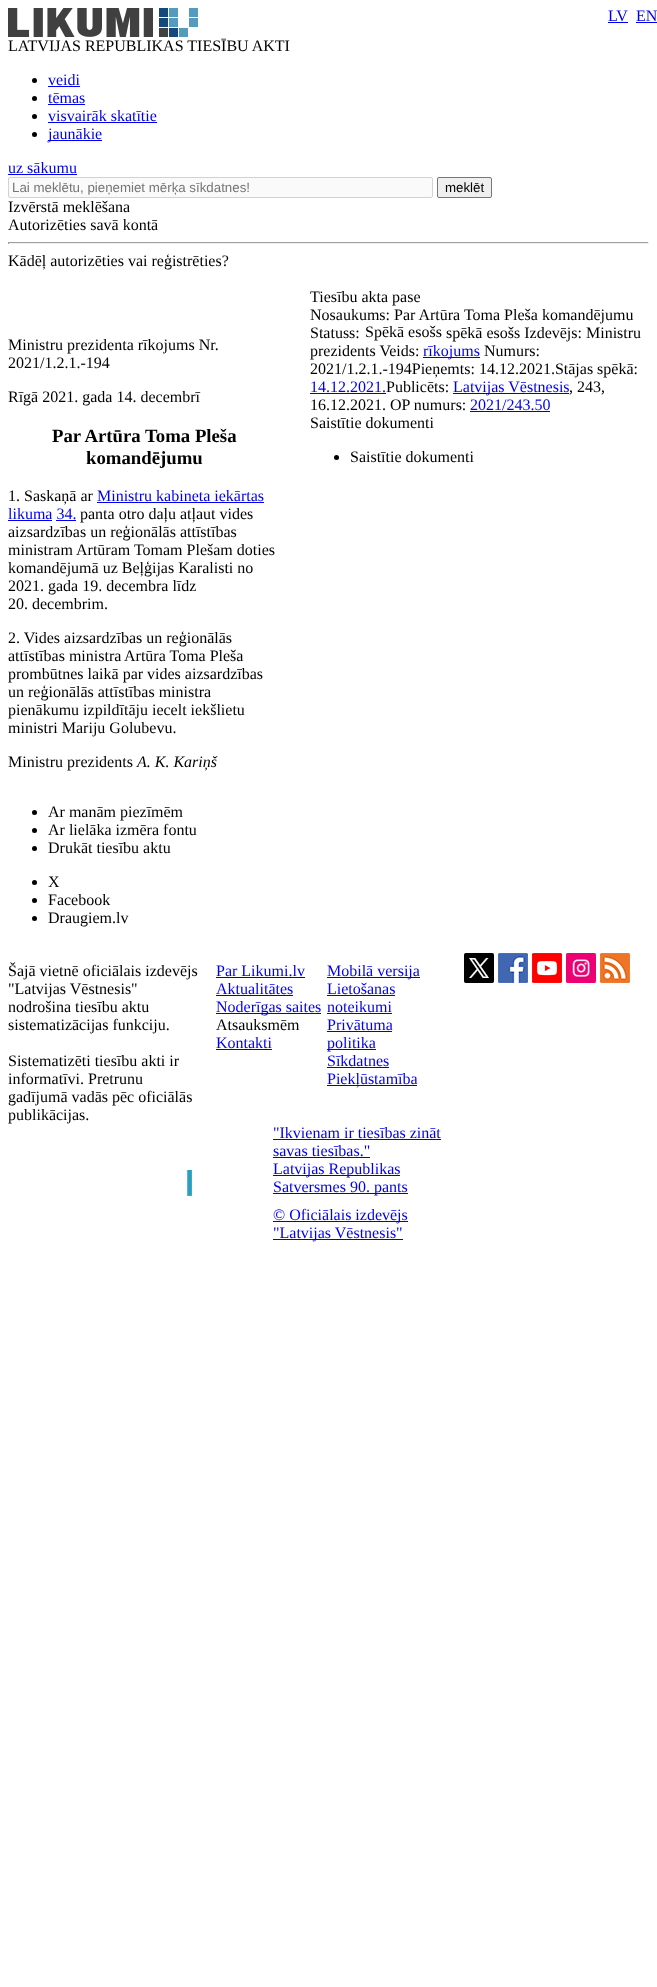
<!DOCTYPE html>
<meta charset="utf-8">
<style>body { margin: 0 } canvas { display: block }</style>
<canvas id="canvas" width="657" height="1987"></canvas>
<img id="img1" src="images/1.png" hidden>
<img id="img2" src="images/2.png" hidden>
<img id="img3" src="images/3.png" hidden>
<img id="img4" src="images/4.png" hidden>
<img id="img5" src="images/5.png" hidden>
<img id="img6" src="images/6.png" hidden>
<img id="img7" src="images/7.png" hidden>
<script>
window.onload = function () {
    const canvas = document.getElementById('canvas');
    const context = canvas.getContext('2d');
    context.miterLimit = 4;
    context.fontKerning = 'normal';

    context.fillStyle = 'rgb(255, 255, 255)';
    context.fillRect(0, 0, 657, 1987);
    context.drawImage(document.getElementById('img1'), 8, 8, 190, 29);
    context.fillStyle = 'rgb(0, 0, 238)';
    context.fillRect(608, 22, 20, 1);
    context.fillRect(636, 22, 21, 1);
    context.fillStyle = 'rgb(0, 0, 0)';
    context.beginPath();
    context.arc(34.5, 80.5, 2.5, 0, 2 * Math.PI);
    context.fill();
    context.fillStyle = 'rgb(0, 0, 238)';
    context.fillRect(48, 86, 32, 1);
    context.fillStyle = 'rgb(0, 0, 0)';
    context.beginPath();
    context.arc(34.5, 98.5, 2.5, 0, 2 * Math.PI);
    context.fill();
    context.fillStyle = 'rgb(0, 0, 238)';
    context.fillRect(48, 104, 37, 1);
    context.fillStyle = 'rgb(0, 0, 0)';
    context.beginPath();
    context.arc(34.5, 116.5, 2.5, 0, 2 * Math.PI);
    context.fill();
    context.fillStyle = 'rgb(0, 0, 238)';
    context.fillRect(48, 122, 109, 1);
    context.fillStyle = 'rgb(0, 0, 0)';
    context.beginPath();
    context.arc(34.5, 134.5, 2.5, 0, 2 * Math.PI);
    context.fill();
    context.fillStyle = 'rgb(0, 0, 238)';
    context.fillRect(48, 140, 54, 1);
    context.fillRect(8, 174, 69, 1);
    context.fillStyle = 'rgb(250, 250, 250)';
    context.beginPath();
    context.roundRect(8.5, 177.5, 424, 20, 1.5);
    context.fill();
    context.strokeStyle = 'rgb(210, 210, 210)';
    context.stroke();
    context.fillStyle = 'rgb(239, 239, 239)';
    context.beginPath();
    context.roundRect(437.5, 177.5, 54, 20, 1.5);
    context.fill();
    context.strokeStyle = 'rgb(118, 118, 118)';
    context.stroke();
    context.fillStyle = 'rgb(159, 159, 159)';
    context.fillRect(8, 242, 641, 1);
    context.fillStyle = 'rgb(238, 238, 238)';
    context.fillRect(648, 242, 1, 2);
    context.fillRect(8, 243, 641, 1);
    context.fillStyle = 'rgb(159, 159, 159)';
    context.fillRect(8, 242, 1, 2);
    context.fillStyle = 'rgb(0, 0, 238)';
    context.fillRect(97, 502, 167, 1);
    context.fillRect(8, 520, 44, 1);
    context.fillRect(56, 520, 20, 1);
    context.fillRect(423, 357, 57, 1);
    context.fillRect(310, 393, 76, 1);
    context.fillRect(453, 393, 116, 1);
    context.fillRect(470, 411, 80, 1);
    context.fillStyle = 'rgb(0, 0, 0)';
    context.beginPath();
    context.arc(336.5, 457.5, 2.5, 0, 2 * Math.PI);
    context.fill();
    context.beginPath();
    context.arc(34.5, 812.5, 2.5, 0, 2 * Math.PI);
    context.fill();
    context.beginPath();
    context.arc(34.5, 830.5, 2.5, 0, 2 * Math.PI);
    context.fill();
    context.beginPath();
    context.arc(34.5, 848.5, 2.5, 0, 2 * Math.PI);
    context.fill();
    context.beginPath();
    context.arc(34.5, 882.5, 2.5, 0, 2 * Math.PI);
    context.fill();
    context.beginPath();
    context.arc(34.5, 900.5, 2.5, 0, 2 * Math.PI);
    context.fill();
    context.beginPath();
    context.arc(34.5, 918.5, 2.5, 0, 2 * Math.PI);
    context.fill();
    context.fillStyle = 'rgb(0, 0, 238)';
    context.fillRect(216, 977, 89, 1);
    context.fillRect(216, 995, 77, 1);
    context.fillRect(216, 1013, 105, 1);
    context.fillRect(216, 1049, 56, 1);
    context.fillRect(327, 977, 93, 1);
    context.fillRect(327, 995, 68, 1);
    context.fillRect(327, 1013, 65, 1);
    context.fillRect(327, 1031, 65, 1);
    context.fillRect(327, 1049, 49, 1);
    context.fillRect(327, 1067, 62, 1);
    context.fillRect(327, 1085, 90, 1);
    context.drawImage(document.getElementById('img2'), 464, 953, 30, 30);
    context.drawImage(document.getElementById('img3'), 498, 953, 30, 30);
    context.drawImage(document.getElementById('img4'), 532, 953, 30, 30);
    context.drawImage(document.getElementById('img5'), 566, 953, 30, 30);
    context.drawImage(document.getElementById('img6'), 600, 953, 30, 30);
    context.drawImage(document.getElementById('img7'), 187, 1170, 5, 26);
    context.fillRect(273, 1139, 168, 1);
    context.fillRect(273, 1157, 97, 1);
    context.fillRect(273, 1175, 127, 1);
    context.fillRect(273, 1193, 135, 1);
    context.fillRect(273, 1221, 135, 1);
    context.fillRect(273, 1239, 130, 1);
    context.font = '16px Liberation Serif';
    context.fillText('LV', 608, 21);
    context.fillText('EN', 636, 21);
    context.fillStyle = 'rgb(0, 0, 0)';
    context.fillText('LATVIJAS REPUBLIKAS TIESĪBU AKTI', 8, 51);
    context.fillStyle = 'rgb(0, 0, 238)';
    context.fillText('veidi', 48, 85);
    context.fillText('tēmas', 48, 103);
    context.fillText('visvairāk skatītie', 48, 121);
    context.fillText('jaunākie', 48, 139);
    context.fillText('uz sākumu', 8, 173);
    context.font = '13.3px Liberation Sans';
    context.fillStyle = 'rgb(117, 117, 117)';
    context.fillText('Lai meklētu, pieņemiet mērķa sīkdatnes!', 12, 192);
    context.fillStyle = 'rgb(0, 0, 0)';
    context.fillText('meklēt', 445, 192);
    context.font = '16px Liberation Serif';
    context.fillText('Izvērstā meklēšana', 8, 212);
    context.fillText('Autorizēties savā kontā', 8, 230);
    context.fillText('Kādēļ autorizēties vai reģistrēties?', 8, 266);
    context.fillText('Ministru prezidenta rīkojums Nr.', 8, 350);
    context.fillText('2021/1.2.1.-194', 8, 368);
    context.fillText('Rīgā 2021. gada 14. decembrī', 8, 402);
    context.font = 'bold 18.75px Liberation Serif';
    context.fillText('Par Artūra Toma Pleša', 52, 442);
    context.fillText('komandējumu', 86, 464);
    context.font = '16px Liberation Serif';
    context.fillText('1. Saskaņā ar', 8, 501);
    context.fillStyle = 'rgb(0, 0, 238)';
    context.fillText('Ministru kabineta iekārtas', 97, 501);
    context.fillText('likuma 34.', 8, 519);
    context.fillStyle = 'rgb(0, 0, 0)';
    context.fillText('panta otro daļu atļaut vides', 80, 519);
    context.fillText('aizsardzības un reģionālās attīstības', 8, 537);
    context.fillText('ministram Artūram Tomam Plešam doties', 8, 555);
    context.fillText('komandējumā uz Beļģijas Karalisti no', 8, 573);
    context.fillText('2021. gada 19. decembra līdz', 8, 591);
    context.fillText('20. decembrim.', 8, 609);
    context.fillText('2. Vides aizsardzības un reģionālās', 8, 643);
    context.fillText('attīstības ministra', 8, 661);
    context.fillText('Artūra Toma Pleša', 124, 661);
    context.fillText('prombūtnes laikā par vides aizsardzības', 8, 679);
    context.fillText('un reģionālās attīstības ministra', 8, 697);
    context.fillText('pienākumu izpildītāju iecelt iekšlietu', 8, 715);
    context.fillText('ministri Mariju Golubevu.', 8, 733);
    context.fillText('Ministru prezidents', 8, 767);
    context.font = 'italic 16px Liberation Serif';
    context.fillText('A. K. Kariņš', 137, 767);
    context.font = '16px Liberation Serif';
    context.fillText('Tiesību akta pase', 310, 302);
    context.fillText('Nosaukums: Par Artūra Toma Pleša komandējumu', 310, 320);
    context.fillText('Statuss:', 310, 338);
    context.fillText('Spēkā esošs', 365, 337);
    context.fillText('spēkā esošs Izdevējs: Ministru', 446, 338);
    context.fillText('prezidents Veids:', 310, 356);
    context.fillStyle = 'rgb(0, 0, 238)';
    context.fillText('rīkojums', 423, 356);
    context.fillStyle = 'rgb(0, 0, 0)';
    context.fillText('Numurs:', 484, 356);
    context.fillText('2021/1.2.1.-194Pieņemts: 14.12.2021.Stājas spēkā:', 310, 374);
    context.fillStyle = 'rgb(0, 0, 238)';
    context.fillText('14.12.2021.', 310, 392);
    context.fillStyle = 'rgb(0, 0, 0)';
    context.fillText('Publicēts:', 386, 392);
    context.fillStyle = 'rgb(0, 0, 238)';
    context.fillText('Latvijas Vēstnesis', 453, 392);
    context.fillStyle = 'rgb(0, 0, 0)';
    context.fillText(', 243,', 569, 392);
    context.fillText('16.12.2021. OP numurs:', 310, 410);
    context.fillStyle = 'rgb(0, 0, 238)';
    context.fillText('2021/243.50', 470, 410);
    context.fillStyle = 'rgb(0, 0, 0)';
    context.fillText('Saistītie dokumenti', 310, 428);
    context.fillText('Saistītie dokumenti', 350, 462);
    context.fillText('Ar manām piezīmēm', 48, 817);
    context.fillText('Ar lielāka izmēra fontu', 48, 835);
    context.fillText('Drukāt tiesību aktu', 48, 853);
    context.fillText('X', 48, 887);
    context.fillText('Facebook', 48, 905);
    context.fillText('Draugiem.lv', 48, 923);
    context.fillText('Šajā vietnē oficiālais izdevējs', 8, 976);
    context.fillText('"Latvijas Vēstnesis"', 8, 994);
    context.fillText('nodrošina tiesību aktu', 8, 1012);
    context.fillText('sistematizācijas funkciju.', 8, 1030);
    context.fillText('Sistematizēti tiesību akti ir', 8, 1066);
    context.fillText('informatīvi. Pretrunu', 8, 1084);
    context.fillText('gadījumā vadās pēc oficiālās', 8, 1102);
    context.fillText('publikācijas.', 8, 1120);
    context.fillStyle = 'rgb(0, 0, 238)';
    context.fillText('Par Likumi.lv', 216, 976);
    context.fillText('Aktualitātes', 216, 994);
    context.fillText('Noderīgas saites', 216, 1012);
    context.fillStyle = 'rgb(0, 0, 0)';
    context.fillText('Atsauksmēm', 216, 1030);
    context.fillStyle = 'rgb(0, 0, 238)';
    context.fillText('Kontakti', 216, 1048);
    context.fillText('Mobilā versija', 327, 976);
    context.fillText('Lietošanas', 327, 994);
    context.fillText('noteikumi', 327, 1012);
    context.fillText('Privātuma', 327, 1030);
    context.fillText('politika', 327, 1048);
    context.fillText('Sīkdatnes', 327, 1066);
    context.fillText('Piekļūstamība', 327, 1084);
    context.fillText('"Ikvienam ir tiesības zināt', 273, 1138);
    context.fillText('savas tiesības."', 273, 1156);
    context.fillText('Latvijas Republikas', 273, 1174);
    context.fillText('Satversmes 90. pants', 273, 1192);
    context.fillText('© Oficiālais izdevējs', 273, 1220);
    context.fillText('"Latvijas Vēstnesis"', 273, 1238);
};
</script>
